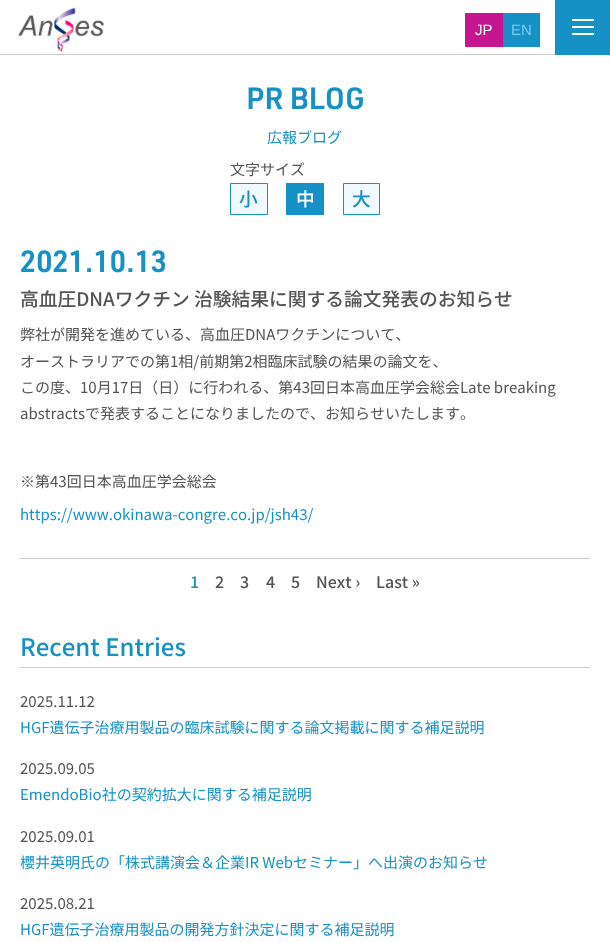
<!DOCTYPE html>
<meta charset="utf-8">
<style>body { margin: 0 } canvas { display: block }</style>
<canvas id="canvas" width="610" height="942"></canvas>
<img id="img1" src="images/1.png" hidden>
<script>
window.onload = function () {
    const canvas = document.getElementById('canvas');
    const context = canvas.getContext('2d');
    context.miterLimit = 4;
    context.fontKerning = 'none';

    context.fillStyle = 'rgb(255, 255, 255)';
    context.fillRect(0, 0, 610, 942);
    context.fillStyle = 'rgb(204, 204, 204)';
    context.fillRect(0, 54, 555, 1);
    context.drawImage(document.getElementById('img1'), 18, 7, 87, 45);
    context.fillStyle = 'rgb(198, 21, 145)';
    context.fillRect(465, 13, 38, 34);
    context.fillStyle = 'rgb(21, 145, 198)';
    context.fillRect(503, 13, 37, 34);
    context.fillRect(555, 0, 55, 55);
    context.fillStyle = 'rgb(255, 255, 255)';
    context.fillRect(572, 19, 22, 2);
    context.fillRect(572, 26, 22, 2);
    context.fillRect(572, 33, 22, 2);
    context.fillStyle = 'rgb(240, 249, 253)';
    context.beginPath();
    context.rect(230.5, 183.5, 37, 31);
    context.fill();
    context.strokeStyle = 'rgb(21, 145, 198)';
    context.stroke();
    context.fillStyle = 'rgb(21, 145, 198)';
    context.fillRect(286, 183, 38, 32);
    context.fillStyle = 'rgb(240, 249, 253)';
    context.beginPath();
    context.rect(343.5, 183.5, 36, 31);
    context.fill();
    context.stroke();
    context.fillStyle = 'rgb(204, 204, 204)';
    context.fillRect(20, 558, 570, 1);
    context.fillRect(20, 667, 570, 1);
    context.font = '15px Liberation Sans';
    context.fillStyle = 'rgb(255, 255, 255)';
    context.fillText('JP', 475, 35);
    context.fillStyle = 'rgb(119, 205, 242)';
    context.fillText('EN', 511, 35);
    context.font = '600 30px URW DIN';
    context.fillStyle = 'rgb(21, 145, 198)';
    context.fillText('PR BLOG', 246, 109);
    context.font = '15px Noto Sans JP';
    context.fillText('広報ブログ', 267, 143);
    context.fillStyle = 'rgb(84, 84, 84)';
    context.fillText('文字サイズ', 230, 175);
    context.font = '500 18.75px Noto Sans JP';
    context.fillStyle = 'rgb(21, 145, 198)';
    context.fillText('小', 239, 206);
    context.fillStyle = 'rgb(255, 255, 255)';
    context.fillText('中', 296, 206);
    context.fillStyle = 'rgb(21, 145, 198)';
    context.fillText('大', 352, 206);
    context.font = '600 30px URW DIN';
    context.fillText('2021.10.13', 20, 272);
    context.font = '500 18.75px Noto Sans JP';
    context.fillStyle = 'rgb(84, 84, 84)';
    context.fillText('高血圧DNAワクチン 治験結果に関する論文発表のお知らせ', 20, 306);
    context.font = '15px Noto Sans JP';
    context.fillText('弊社が開発を進めている、高血圧DNAワクチンについて、', 20, 340);
    context.fillText('オーストラリアでの第1相/前期第2相臨床試験の結果の論文を、', 20, 367);
    context.fillText('この度、10月17日（日）に行われる、第43回日本高血圧学会総会Late breaking', 20, 393);
    context.fillText('abstractsで発表することになりましたので、お知らせいたします', 20, 419);
    context.fillText('。', 460, 419);
    context.fillText('※第43回日本高血圧学会総会', 20, 487);
    context.fillStyle = 'rgb(21, 145, 198)';
    context.fillText('https://www.okinawa-congre.co.jp/jsh43/', 20, 520);
    context.font = '500 16px Noto Sans JP';
    context.fillText('1', 190, 588);
    context.fillStyle = 'rgb(84, 84, 84)';
    context.fillText('2', 215, 588);
    context.fillText('3', 240, 588);
    context.fillText('4', 266, 588);
    context.fillText('5', 291, 588);
    context.fillText('Next ›', 316, 588);
    context.fillText('Last »', 376, 588);
    context.font = '500 24px Noto Sans JP';
    context.fillStyle = 'rgb(21, 145, 198)';
    context.fillText('Recent Entries', 20, 656);
    context.font = '15px Noto Sans JP';
    context.fillStyle = 'rgb(84, 84, 84)';
    context.fillText('2025.11.12', 20, 707);
    context.fillStyle = 'rgb(21, 145, 198)';
    context.fillText('HGF遺伝子治療用製品の臨床試験に関する論文掲載に関する補足説明', 20, 733);
    context.fillStyle = 'rgb(84, 84, 84)';
    context.fillText('2025.09.05', 20, 774);
    context.fillStyle = 'rgb(21, 145, 198)';
    context.fillText('EmendoBio社の契約拡大に関する補足説明', 20, 800);
    context.fillStyle = 'rgb(84, 84, 84)';
    context.fillText('2025.09.01', 20, 842);
    context.fillStyle = 'rgb(21, 145, 198)';
    context.fillText('櫻井英明氏の「株式講演会＆企業IR Webセミナー」へ出演のお知らせ', 20, 868);
    context.fillStyle = 'rgb(84, 84, 84)';
    context.fillText('2025.08.21', 20, 909);
    context.fillStyle = 'rgb(21, 145, 198)';
    context.fillText('HGF遺伝子治療用製品の開発方針決定に関する補足説明', 20, 935);
};
</script>
